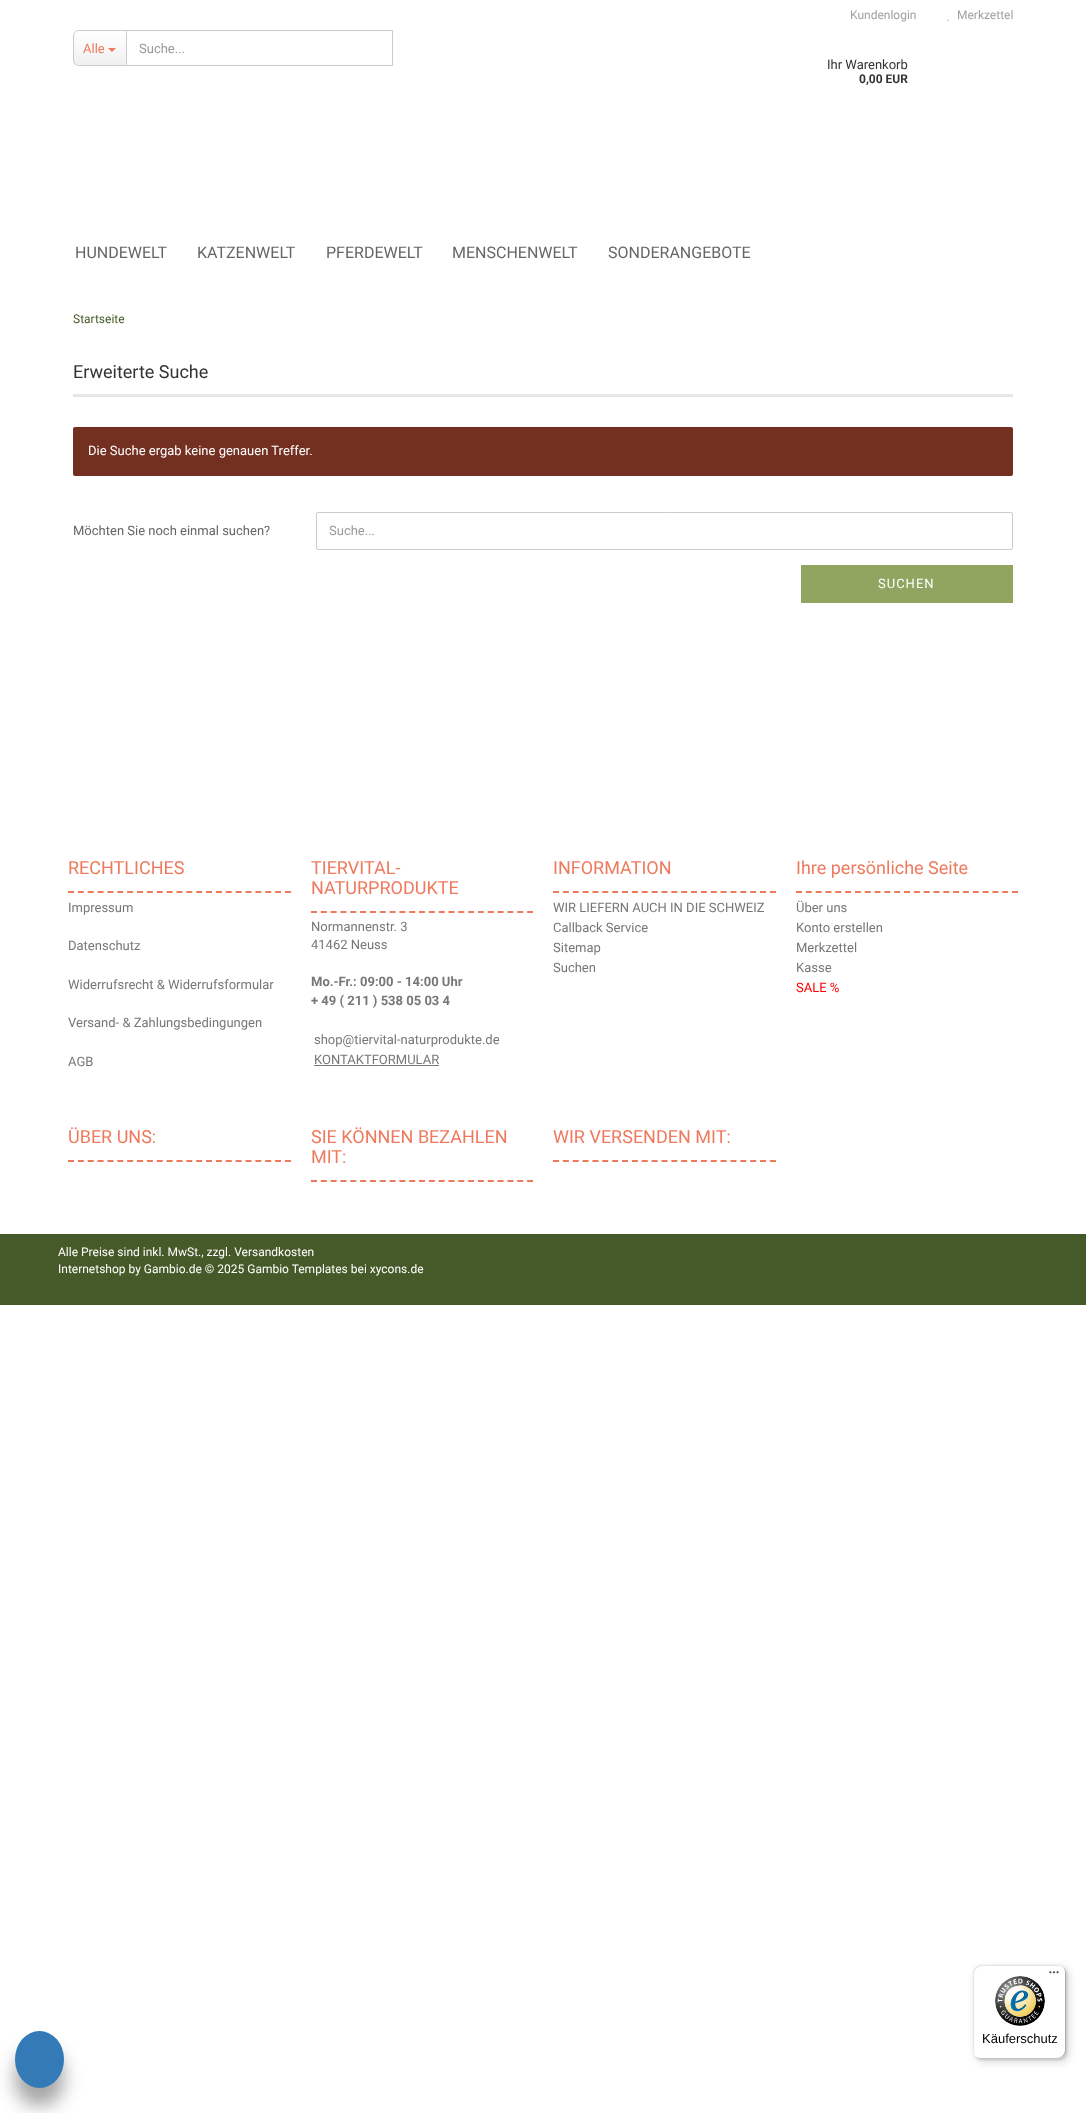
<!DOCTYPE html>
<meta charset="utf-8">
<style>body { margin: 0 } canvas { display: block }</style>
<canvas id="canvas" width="1086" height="2113"></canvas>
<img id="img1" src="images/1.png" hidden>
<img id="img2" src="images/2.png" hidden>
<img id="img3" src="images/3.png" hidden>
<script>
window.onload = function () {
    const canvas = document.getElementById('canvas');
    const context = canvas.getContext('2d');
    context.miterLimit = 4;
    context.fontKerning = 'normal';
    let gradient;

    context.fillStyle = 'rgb(255, 255, 255)';
    context.fillRect(0, 0, 1086, 2113);
    context.drawImage(document.getElementById('img1'), 947, 19, 2, 3);
    context.save();
    context.beginPath();
    context.roundRect(73, 30, 53, 36, [6, 0, 0, 6]);
    context.clip();
    gradient = context.createLinearGradient(100, 31, 100, 65);
    gradient.addColorStop(0, 'rgb(255, 255, 255)');
    gradient.addColorStop(1, 'rgb(240, 240, 240)');
    context.fillStyle = gradient;
    context.fillRect(73, 31, 53, 34);
    context.restore();
    context.fillStyle = 'rgb(204, 204, 204)';
    context.beginPath();
    context.moveTo(79, 30);
    context.lineTo(126, 30);
    context.lineTo(126, 66);
    context.lineTo(79, 66);
    context.bezierCurveTo(76, 66, 73, 63, 73, 60);
    context.lineTo(73, 36);
    context.bezierCurveTo(73, 33, 76, 30, 79, 30);
    context.closePath();
    context.moveTo(79, 31);
    context.lineTo(126, 31);
    context.lineTo(126, 65);
    context.lineTo(79, 65);
    context.bezierCurveTo(76, 65, 74, 63, 74, 60);
    context.lineTo(74, 36);
    context.bezierCurveTo(74, 33, 76, 31, 79, 31);
    context.closePath();
    context.fill('evenodd');
    context.fillStyle = 'rgb(238, 122, 94)';
    context.beginPath();
    context.moveTo(108, 48);
    context.lineTo(116, 48);
    context.lineTo(112, 52);
    context.closePath();
    context.fill();
    context.strokeStyle = 'rgb(204, 204, 204)';
    context.strokeRect(126.5, 30.5, 266, 35);
    context.fillStyle = 'rgb(231, 231, 231)';
    context.fillRect(73, 394, 940, 3);
    context.fillStyle = 'rgb(115, 48, 33)';
    context.beginPath();
    context.roundRect(73, 427, 940, 49, 2);
    context.fill();
    context.beginPath();
    context.roundRect(316.5, 512.5, 696, 37, 1.5);
    context.stroke();
    context.fillStyle = 'rgb(143, 165, 96)';
    context.fillRect(801, 565, 212, 38);
    context.beginPath();
    context.moveTo(68, 892);
    context.lineTo(291, 892);
    context.strokeStyle = 'rgb(238, 122, 94)';
    context.lineWidth = 2;
    context.setLineDash([6, 3.86]);
    context.stroke();
    context.beginPath();
    context.moveTo(311, 912);
    context.lineTo(533, 912);
    context.setLineDash([6, 3.82]);
    context.stroke();
    context.fillStyle = 'rgb(119, 119, 119)';
    context.fillRect(314, 1065, 125, 1);
    context.beginPath();
    context.moveTo(553, 892);
    context.lineTo(776, 892);
    context.setLineDash([6, 3.86]);
    context.stroke();
    context.beginPath();
    context.moveTo(796, 892);
    context.lineTo(1018, 892);
    context.setLineDash([6, 3.82]);
    context.stroke();
    context.beginPath();
    context.moveTo(68, 1161);
    context.lineTo(291, 1161);
    context.setLineDash([6, 3.86]);
    context.stroke();
    context.beginPath();
    context.moveTo(311, 1181);
    context.lineTo(533, 1181);
    context.setLineDash([6, 3.82]);
    context.stroke();
    context.beginPath();
    context.moveTo(553, 1161);
    context.lineTo(776, 1161);
    context.setLineDash([6, 3.86]);
    context.stroke();
    context.fillStyle = 'rgb(70, 89, 40)';
    context.fillRect(0, 1234, 1086, 71);
    context.fillStyle = 'rgba(0, 0, 0, 0.35)';
    context.filter = 'blur(9px)';
    context.beginPath();
    context.roundRect(15, 2049, 49, 57, 24.5);
    context.fill();
    context.filter = 'none';
    context.fillStyle = 'rgb(51, 122, 183)';
    context.beginPath();
    context.ellipse(39.5, 2059.5, 24.5, 28.5, 0, 0, 2 * Math.PI);
    context.fill();
    context.fillStyle = 'rgba(0, 0, 0, 0.15)';
    context.filter = 'blur(4px)';
    context.beginPath();
    context.roundRect(976, 1968, 93, 94, 8);
    context.fill();
    context.filter = 'none';
    context.filter = 'blur(1px)';
    context.beginPath();
    context.roundRect(974, 1966, 93, 94, 8);
    context.fill();
    context.filter = 'none';
    context.fillStyle = 'rgb(255, 255, 255)';
    context.beginPath();
    context.roundRect(973, 1965, 93, 94, 8);
    context.fill();
    context.fillStyle = 'rgb(229, 229, 229)';
    context.beginPath();
    context.moveTo(982, 1966);
    context.lineTo(1059, 1966);
    context.bezierCurveTo(1061, 1966, 1063, 1967, 1065, 1969);
    context.bezierCurveTo(1063, 1967, 1061, 1965, 1058, 1965);
    context.lineTo(981, 1965);
    context.bezierCurveTo(977, 1965, 973, 1969, 973, 1973);
    context.lineTo(973, 2051);
    context.bezierCurveTo(973, 2054, 975, 2056, 977, 2058);
    context.bezierCurveTo(975, 2056, 974, 2054, 974, 2052);
    context.lineTo(974, 1974);
    context.bezierCurveTo(974, 1970, 978, 1966, 982, 1966);
    context.closePath();
    context.fill();
    context.fillStyle = 'rgb(204, 204, 204)';
    context.beginPath();
    context.moveTo(974, 2055);
    context.bezierCurveTo(976, 2057, 978, 2059, 981, 2059);
    context.lineTo(1058, 2059);
    context.bezierCurveTo(1062, 2059, 1066, 2055, 1066, 2051);
    context.lineTo(1066, 1973);
    context.bezierCurveTo(1066, 1970, 1064, 1968, 1062, 1966);
    context.bezierCurveTo(1064, 1968, 1065, 1970, 1065, 1972);
    context.lineTo(1065, 2050);
    context.bezierCurveTo(1065, 2054, 1061, 2058, 1057, 2058);
    context.lineTo(980, 2058);
    context.bezierCurveTo(978, 2058, 976, 2057, 974, 2055);
    context.closePath();
    context.fill();
    context.fillStyle = 'rgba(50, 50, 50, 0.2)';
    context.beginPath();
    context.moveTo(975, 2056);
    context.bezierCurveTo(976, 2058, 979, 2059, 981, 2059);
    context.lineTo(1058, 2059);
    context.bezierCurveTo(1062, 2059, 1066, 2055, 1066, 2051);
    context.lineTo(1066, 1973);
    context.bezierCurveTo(1066, 1971, 1065, 1968, 1063, 1967);
    context.bezierCurveTo(1064, 1968, 1065, 1970, 1065, 1972);
    context.lineTo(1065, 2050);
    context.bezierCurveTo(1065, 2055, 1062, 2058, 1057, 2058);
    context.lineTo(980, 2058);
    context.bezierCurveTo(978, 2058, 976, 2057, 975, 2056);
    context.closePath();
    context.fill();
    context.drawImage(document.getElementById('img2'), 1049, 1971, 10, 3);
    context.fillStyle = 'rgba(255, 255, 255, 0.3)';
    context.beginPath();
    context.moveTo(975, 2056);
    context.bezierCurveTo(976, 2058, 979, 2059, 981, 2059);
    context.lineTo(1058, 2059);
    context.bezierCurveTo(1062, 2059, 1066, 2055, 1066, 2051);
    context.lineTo(1066, 2050);
    context.bezierCurveTo(1066, 2055, 1062, 2058, 1058, 2058);
    context.lineTo(980, 2058);
    context.bezierCurveTo(978, 2058, 976, 2057, 975, 2056);
    context.closePath();
    context.fill();
    context.drawImage(document.getElementById('img3'), 995, 1976, 50, 50);
    context.font = '12px Roboto';
    context.fillStyle = 'rgb(159, 159, 159)';
    context.fillText('Kundenlogin', 850, 19);
    context.fillText('Merkzettel', 957, 19);
    context.font = '13px Roboto';
    context.fillStyle = 'rgb(238, 122, 94)';
    context.fillText('Alle', 83, 53);
    context.fillStyle = 'rgb(153, 153, 153)';
    context.fillText('Suche...', 139, 53);
    context.fillStyle = 'rgb(51, 51, 51)';
    context.fillText('Ihr Warenkorb', 827, 69);
    context.font = 'bold 12px Roboto';
    context.fillText('0,00 EUR', 859, 83);
    context.font = '16px Roboto';
    context.fillStyle = 'rgb(102, 102, 102)';
    context.fillText('HUNDEWELT', 75, 258);
    context.fillText('KATZENWELT', 197, 258);
    context.fillText('PFERDEWELT', 326, 258);
    context.fillText('MENSCHENWELT', 452, 258);
    context.fillText('SONDERANGEBOTE', 608, 258);
    context.font = '12px Roboto';
    context.fillStyle = 'rgb(70, 89, 40)';
    context.fillText('Startseite', 73, 323);
    context.font = '18px Roboto';
    context.fillStyle = 'rgb(51, 51, 51)';
    context.fillText('Erweiterte Suche', 73, 378);
    context.font = '13px Roboto';
    context.fillStyle = 'rgb(255, 255, 255)';
    context.fillText('Die Suche ergab keine genauen Treffer.', 88, 455);
    context.fillStyle = 'rgb(102, 102, 102)';
    context.fillText('Möchten Sie noch einmal suchen?', 73, 535);
    context.fillStyle = 'rgb(153, 153, 153)';
    context.fillText('Suche...', 329, 535);
    context.letterSpacing = '1px';
    context.fillStyle = 'rgb(255, 255, 255)';
    context.fillText('SUCHEN', 878, 588);
    context.letterSpacing = '0px';
    context.font = '18px Roboto';
    context.fillStyle = 'rgb(238, 122, 94)';
    context.fillText('RECHTLICHES', 68, 874);
    context.font = '13px Roboto';
    context.fillStyle = 'rgb(119, 119, 119)';
    context.fillText('Impressum', 68, 912);
    context.fillText('Datenschutz', 68, 950);
    context.fillText('Widerrufsrecht & Widerrufsformular', 68, 989);
    context.fillText('Versand- & Zahlungsbedingungen', 68, 1027);
    context.fillText('AGB', 68, 1066);
    context.font = '18px Roboto';
    context.fillStyle = 'rgb(238, 122, 94)';
    context.fillText('TIERVITAL-', 311, 874);
    context.fillText('NATURPRODUKTE', 311, 894);
    context.font = '13px Roboto';
    context.fillStyle = 'rgb(119, 119, 119)';
    context.fillText('Normannenstr. 3', 311, 931);
    context.fillText('41462 Neuss', 311, 949);
    context.font = 'bold 13px Roboto';
    context.fillText('Mo.-Fr.: 09:00 - 14:00 Uhr', 311, 986);
    context.fillText('+ 49 ( 211 ) 538 05 03 4', 311, 1005);
    context.font = '13px Roboto';
    context.fillText('shop@tiervital-naturprodukte.de', 314, 1044);
    context.fillText('KONTAKTFORMULAR', 314, 1064);
    context.font = '18px Roboto';
    context.fillStyle = 'rgb(238, 122, 94)';
    context.fillText('INFORMATION', 553, 874);
    context.font = '13px Roboto';
    context.fillStyle = 'rgb(119, 119, 119)';
    context.fillText('WIR LIEFERN AUCH IN DIE SCHWEIZ', 553, 912);
    context.fillText('Callback Service', 553, 932);
    context.fillText('Sitemap', 553, 952);
    context.fillText('Suchen', 553, 972);
    context.font = '18px Roboto';
    context.fillStyle = 'rgb(238, 122, 94)';
    context.fillText('Ihre persönliche Seite', 796, 874);
    context.font = '13px Roboto';
    context.fillStyle = 'rgb(119, 119, 119)';
    context.fillText('Über uns', 796, 912);
    context.fillText('Konto erstellen', 796, 932);
    context.fillText('Merkzettel', 796, 952);
    context.fillText('Kasse', 796, 972);
    context.fillStyle = 'rgb(255, 0, 0)';
    context.fillText('SALE %', 796, 992);
    context.font = '18px Roboto';
    context.fillStyle = 'rgb(238, 122, 94)';
    context.fillText('ÜBER UNS:', 68, 1143);
    context.fillText('SIE KÖNNEN BEZAHLEN', 311, 1143);
    context.fillText('MIT:', 311, 1163);
    context.fillText('WIR VERSENDEN MIT:', 553, 1143);
    context.font = '12px Roboto';
    context.fillStyle = 'rgb(255, 255, 255)';
    context.fillText('Alle Preise sind inkl. MwSt., zzgl. Versandkosten', 58, 1256);
    context.fillText('Internetshop by Gambio.de © 2025 Gambio Templates bei xycons.de', 58, 1273);
    context.font = '13px Liberation Sans';
    context.fillStyle = 'rgb(0, 0, 0)';
    context.fillText('Käuferschutz', 982, 2043);
};
</script>
